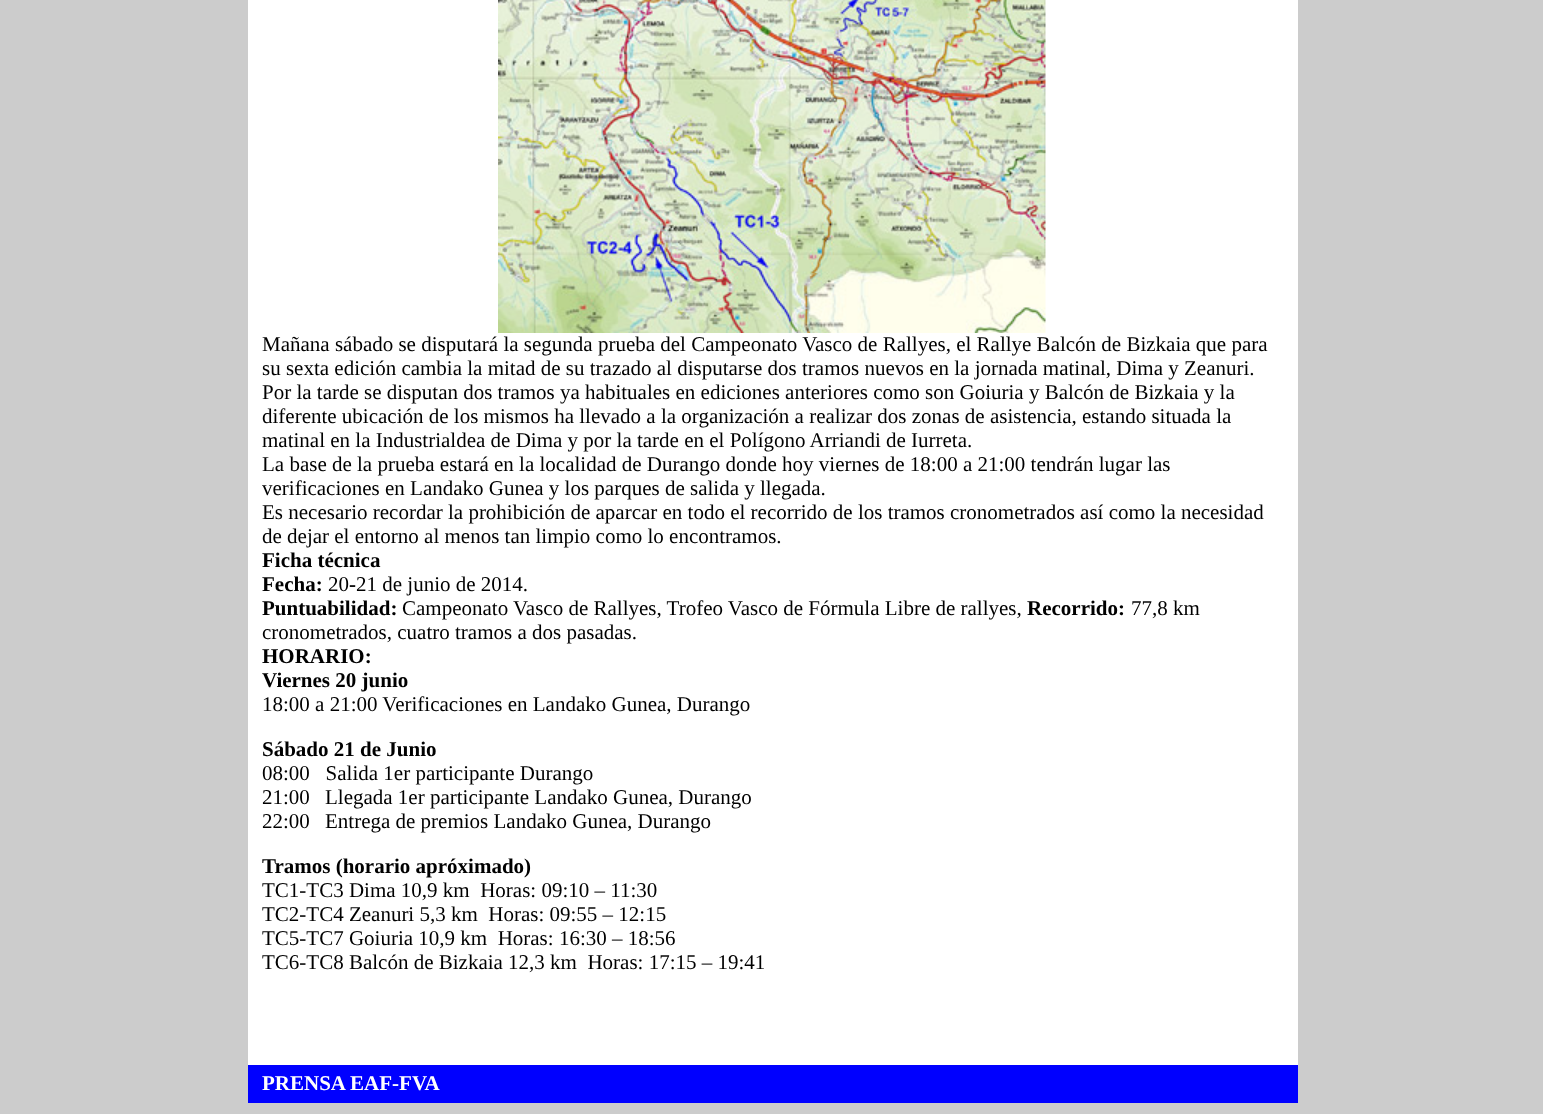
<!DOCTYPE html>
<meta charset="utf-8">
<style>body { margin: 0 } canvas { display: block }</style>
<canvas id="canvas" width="1543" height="1114"></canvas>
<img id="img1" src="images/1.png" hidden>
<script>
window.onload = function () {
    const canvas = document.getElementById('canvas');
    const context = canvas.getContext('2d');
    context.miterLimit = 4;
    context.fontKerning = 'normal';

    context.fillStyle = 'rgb(204, 204, 204)';
    context.fillRect(0, 0, 1543, 1114);
    context.fillStyle = 'rgb(255, 255, 255)';
    context.fillRect(248, 0, 1050, 333);
    context.drawImage(document.getElementById('img1'), 498, 0, 548, 333);
    context.fillRect(248, 333, 1050, 732);
    context.fillStyle = 'rgb(0, 0, 255)';
    context.fillRect(248, 1065, 1050, 38);
    context.font = '21px Liberation Serif';
    context.fillStyle = 'rgb(0, 0, 0)';
    context.fillText('Mañana sábado se disputará la segunda prueba del Campeonato Vasco de Rallyes, el Rallye Balcón de Bizkaia que para', 262, 351);
    context.fillText('su sexta edición cambia la mitad de su trazado al disputarse dos tramos nuevos en la jornada matinal, Dima y Zeanuri.', 262, 375);
    context.fillText('Por la tarde se disputan dos tramos ya habituales en ediciones anteriores como son Goiuria y Balcón de Bizkaia y la', 262, 399);
    context.fillText('diferente ubicación de los mismos ha llevado a la organización a realizar dos zonas de asistencia, estando situada la', 262, 423);
    context.fillText('matinal en la Industrialdea de Dima y por la tarde en el Polígono Arriandi de Iurreta.', 262, 447);
    context.fillText('La base de la prueba estará en la localidad de Durango donde hoy viernes de 18:00 a 21:00 tendrán lugar las', 262, 471);
    context.fillText('verificaciones en Landako Gunea y los parques de salida y llegada.', 262, 495);
    context.fillText('Es necesario recordar la prohibición de aparcar en todo el recorrido de los tramos cronometrados así como la necesidad', 262, 519);
    context.fillText('de dejar el entorno al menos tan limpio como lo encontramos.', 262, 543);
    context.font = 'bold 21px Liberation Serif';
    context.fillText('Ficha técnica', 262, 567);
    context.fillText('Fecha:', 262, 591);
    context.font = '21px Liberation Serif';
    context.fillText('20', 328, 591);
    context.font = 'bold 21px Liberation Serif';
    context.fillText('-', 349, 591);
    context.font = '21px Liberation Serif';
    context.fillText('21 de junio de 2014.', 356, 591);
    context.font = 'bold 21px Liberation Serif';
    context.fillText('Puntuabilidad:', 262, 615);
    context.font = '21px Liberation Serif';
    context.fillText('Campeonato Vasco de Rallyes, Trofeo Vasco de Fórmula Libre de rallyes,', 402, 615);
    context.font = 'bold 21px Liberation Serif';
    context.fillText('Recorrido:', 1027, 615);
    context.font = '21px Liberation Serif';
    context.fillText('77,8 km', 1131, 615);
    context.fillText('cronometrados, cuatro tramos a dos pasadas.', 262, 639);
    context.font = 'bold 21px Liberation Serif';
    context.fillText('HORARIO:', 262, 663);
    context.fillText('Viernes 20 junio', 262, 687);
    context.font = '21px Liberation Serif';
    context.fillText('18:00 a 21:00 Verificaciones en Landako Gunea, Durango', 262, 711);
    context.font = 'bold 21px Liberation Serif';
    context.fillText('Sábado 21 de Junio', 262, 756);
    context.font = '21px Liberation Serif';
    context.fillText('08:00   Salida 1er participante Durango', 262, 780);
    context.fillText('21:00', 262, 804);
    context.fillText('Llegada 1er participante Landako Gunea, Durango', 325, 804);
    context.fillText('22:00', 262, 828);
    context.fillText('Entrega de premios Landako Gunea, Durango', 325, 828);
    context.font = 'bold 21px Liberation Serif';
    context.fillText('Tramos (horario apróximado)', 262, 873);
    context.font = '21px Liberation Serif';
    context.fillText('TC1-TC3 Dima 10,9 km  Horas: 09:10 – 11:30', 262, 897);
    context.fillText('TC2-TC4 Zeanuri 5,3 km  Horas: 09:55 – 12:15', 262, 921);
    context.fillText('TC5-TC7 Goiuria 10,9 km  Horas: 16:30 – 18:56', 262, 945);
    context.fillText('TC6-TC8 Balcón de Bizkaia 12,3 km  Horas: 17:15 – 19:41', 262, 969);
    context.font = 'bold 21px Liberation Serif';
    context.fillStyle = 'rgb(255, 255, 255)';
    context.fillText('PRENSA EAF-FVA', 262, 1090);
};
</script>
